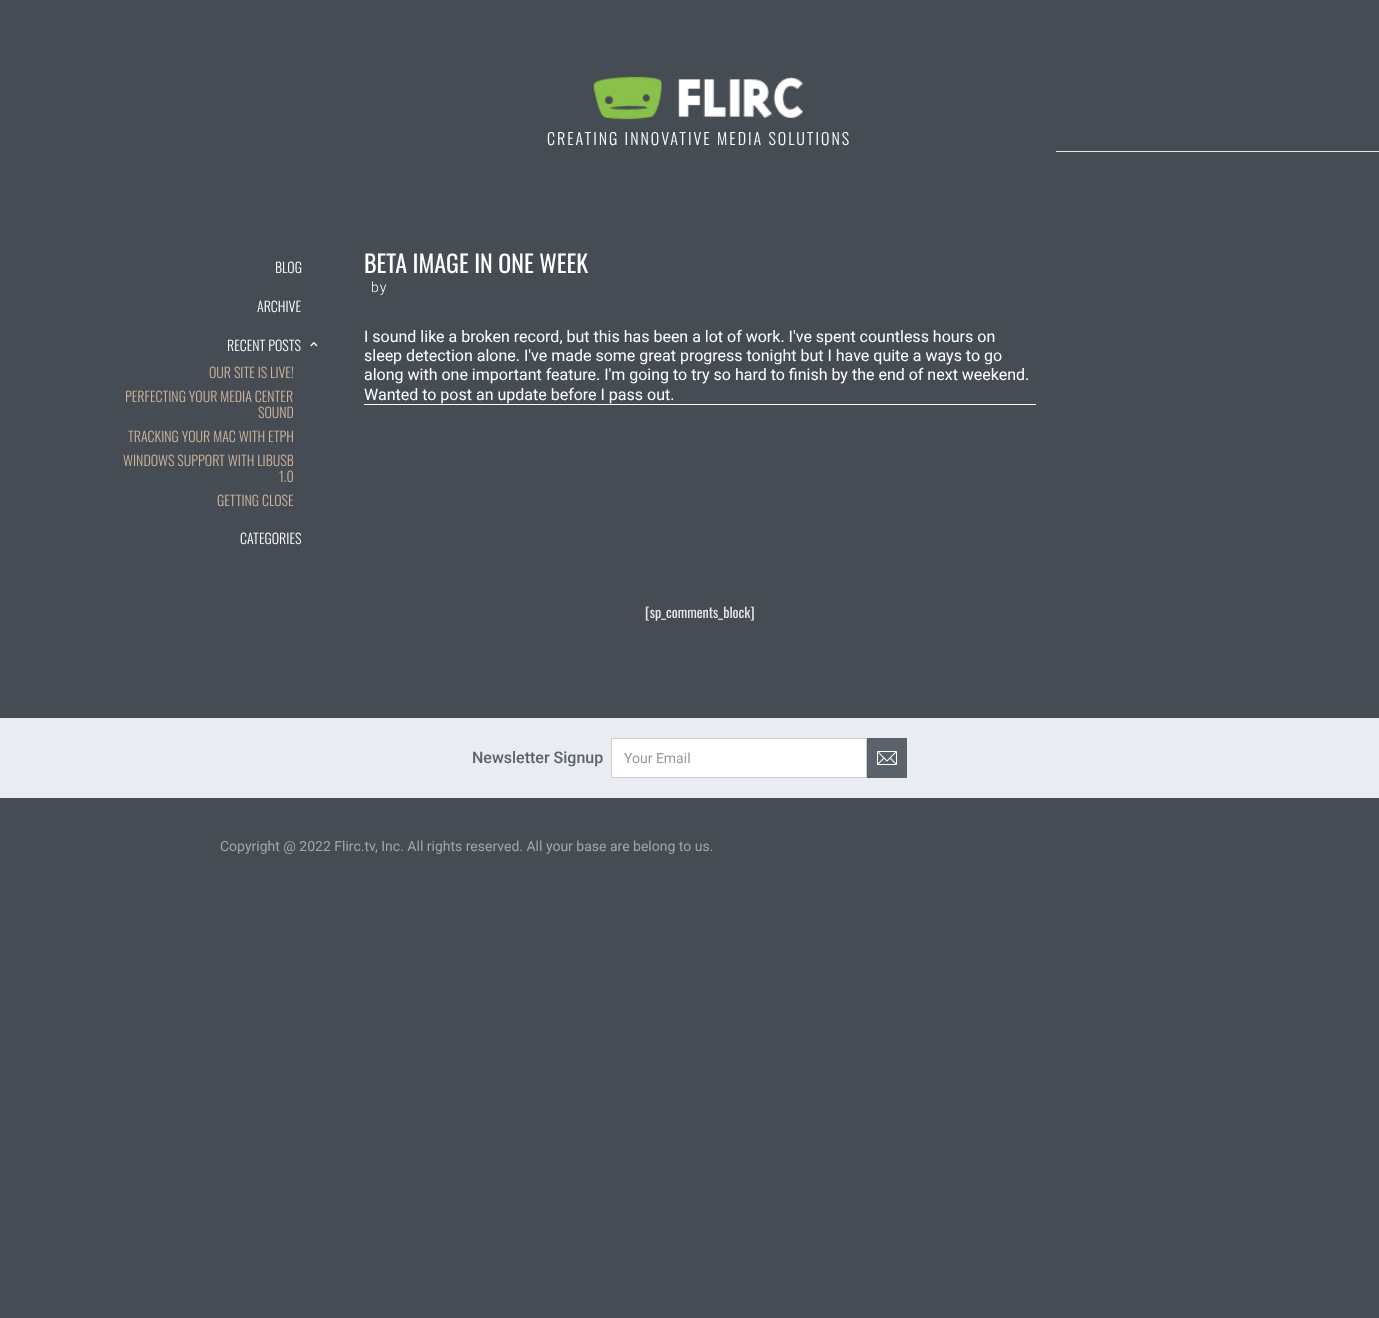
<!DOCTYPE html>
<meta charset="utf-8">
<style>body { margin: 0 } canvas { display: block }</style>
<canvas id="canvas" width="1379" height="1318"></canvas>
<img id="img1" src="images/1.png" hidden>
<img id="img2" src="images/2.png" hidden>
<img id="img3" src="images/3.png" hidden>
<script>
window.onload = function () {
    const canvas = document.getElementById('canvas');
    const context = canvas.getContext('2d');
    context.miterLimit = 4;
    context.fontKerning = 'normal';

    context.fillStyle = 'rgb(69, 76, 83)';
    context.fillRect(0, 0, 1379, 1318);
    context.drawImage(document.getElementById('img1'), 593, 76, 210, 44);
    context.fillStyle = 'rgb(237, 232, 230)';
    context.fillRect(1056, 151, 323, 1);
    context.drawImage(document.getElementById('img2'), 310, 341, 8, 6);
    context.fillStyle = 'rgb(255, 255, 255)';
    context.fillRect(364, 404, 672, 1);
    context.fillStyle = 'rgb(233, 236, 240)';
    context.fillRect(0, 718, 1379, 80);
    context.fillStyle = 'rgb(255, 255, 255)';
    context.beginPath();
    context.rect(611.5, 738.5, 255, 39);
    context.fill();
    context.strokeStyle = 'rgb(204, 204, 204)';
    context.stroke();
    context.fillStyle = 'rgb(90, 99, 108)';
    context.fillRect(867, 738, 40, 40);
    context.drawImage(document.getElementById('img3'), 877, 751, 20, 14);
    context.letterSpacing = '2px';
    context.font = '300 16px Oswald';
    context.fillStyle = 'rgb(255, 255, 255)';
    context.fillText('CREATING INNOVATIVE MEDIA SOLUTIONS', 547, 145);
    context.letterSpacing = '0px';
    context.font = '300 14px Oswald';
    context.fillText('BLOG', 275, 273);
    context.fillText('ARCHIVE', 257, 312);
    context.fillText('RECENT POSTS', 227, 351);
    context.fillStyle = 'rgb(209, 182, 157)';
    context.fillText('OUR SITE IS LIVE!', 209, 378);
    context.fillText('PERFECTING YOUR MEDIA CENTER', 125, 402);
    context.fillText('SOUND', 258, 418);
    context.fillText('TRACKING YOUR MAC WITH ETPH', 128, 442);
    context.fillText('WINDOWS SUPPORT WITH LIBUSB', 123, 466);
    context.fillText('1.0', 279, 482);
    context.fillText('GETTING CLOSE', 217, 506);
    context.fillStyle = 'rgb(255, 255, 255)';
    context.fillText('CATEGORIES', 240, 544);
    context.font = '24px Oswald';
    context.fillText('BETA IMAGE IN ONE WEEK', 364, 273);
    context.letterSpacing = '1px';
    context.font = '300 14px Roboto';
    context.fillText('by', 371, 292);
    context.letterSpacing = '0px';
    context.font = '16px Roboto';
    context.fillText('I sound like a broken record, but this has been a lot of work. I\'ve spent countless hours on', 364, 342);
    context.fillText('sleep detection alone. I\'ve made some great progress tonight but I have quite a ways to go', 364, 361);
    context.fillText('along with one important feature. I\'m going to try so hard to finish by the end of next weekend.', 364, 380);
    context.fillText('Wanted to post an update before I pass out.', 364, 400);
    context.font = '14px Oswald';
    context.fillStyle = 'rgb(237, 232, 230)';
    context.fillText('[sp_comments_block]', 645, 618);
    context.font = '500 16px Roboto';
    context.fillStyle = 'rgb(90, 99, 108)';
    context.fillText('Newsletter Signup', 472, 763);
    context.font = '14px Roboto';
    context.fillStyle = 'rgb(153, 153, 153)';
    context.fillText('Your Email', 624, 763);
    context.fillStyle = 'rgb(162, 166, 169)';
    context.fillText('Copyright @ 2022 Flirc.tv, Inc. All rights reserved. All your base are belong to us.', 220, 851);
};
</script>
